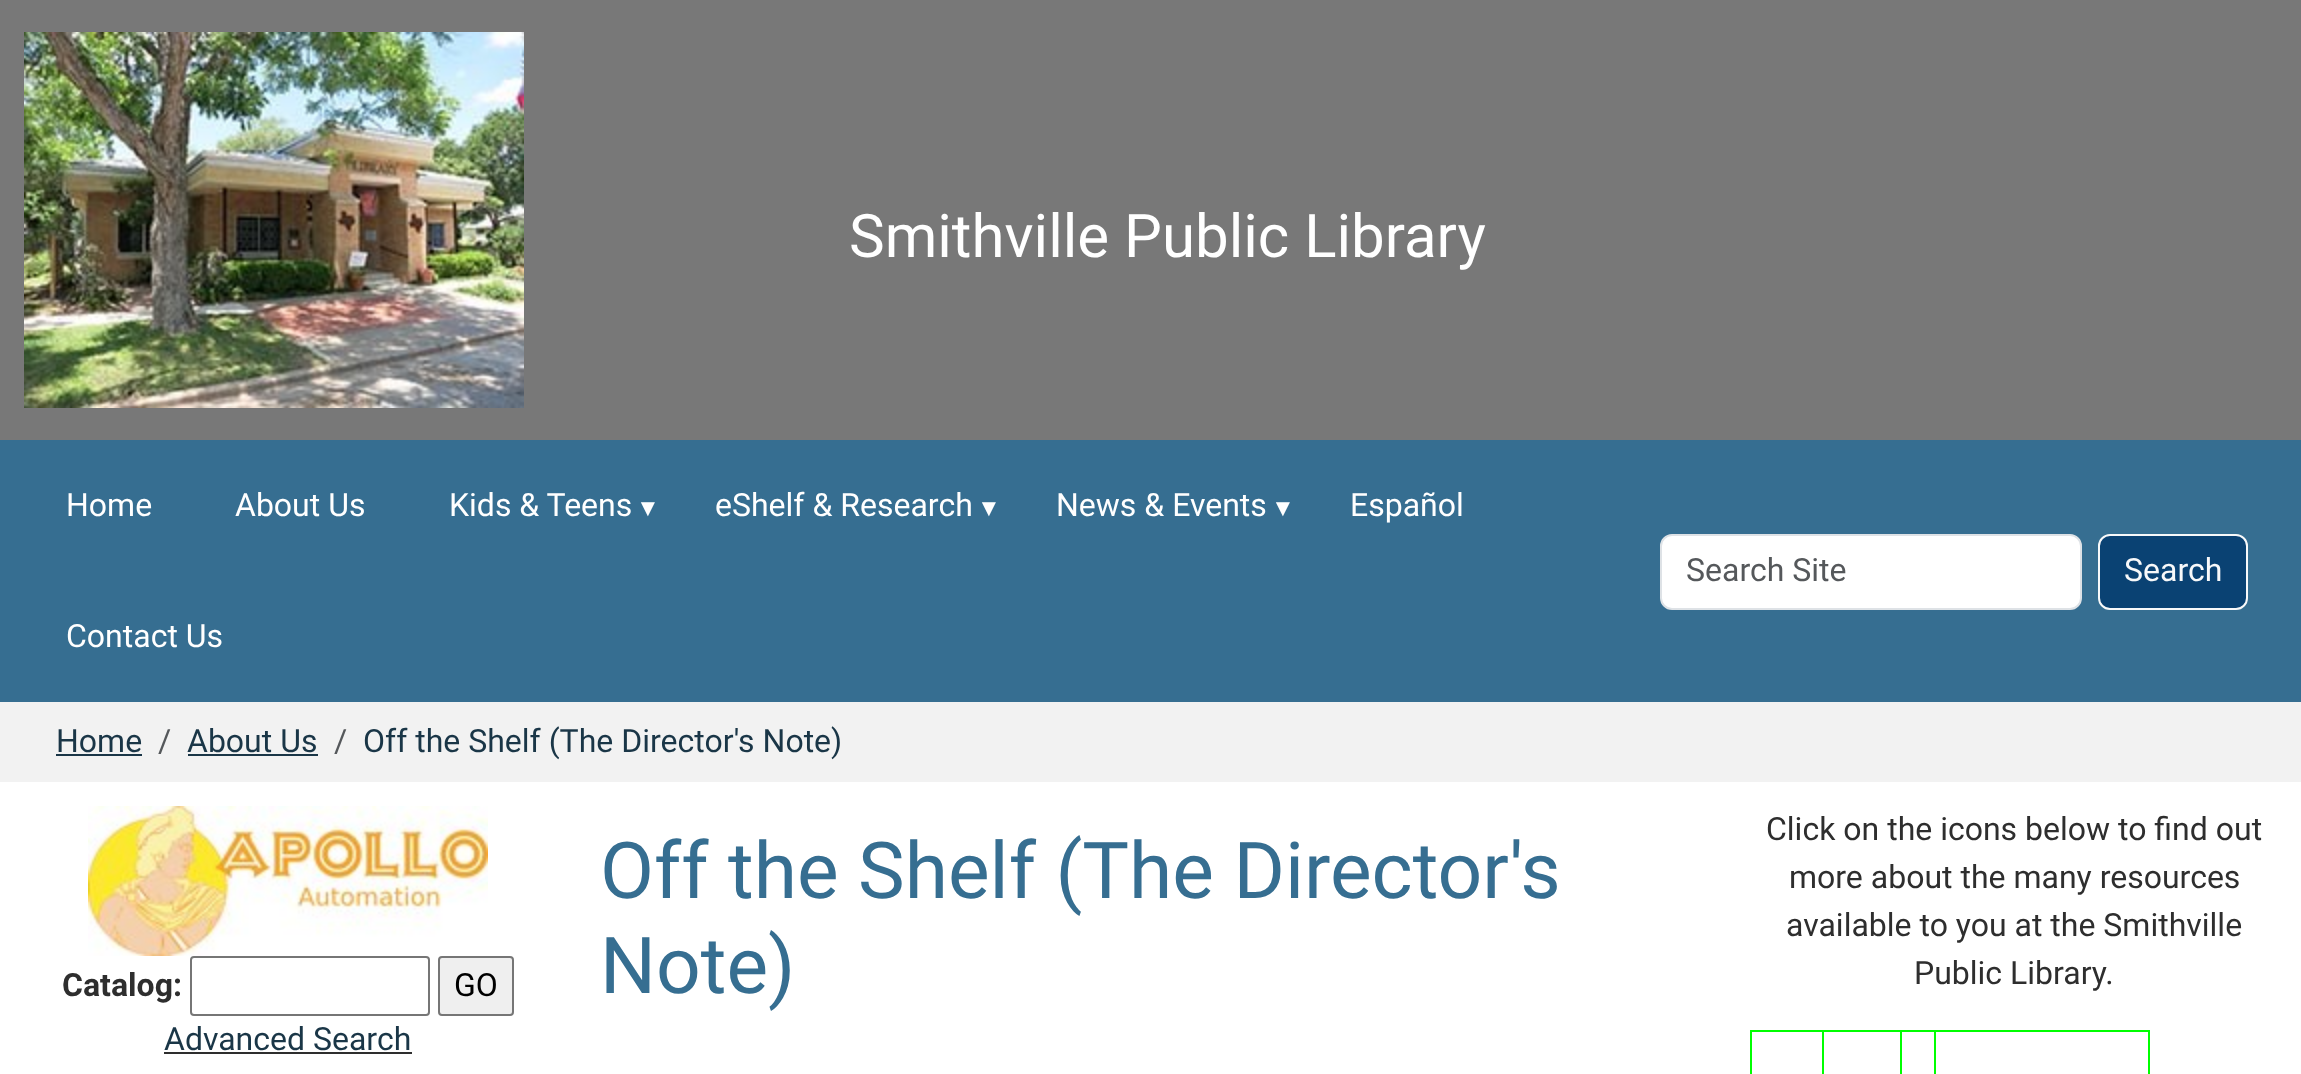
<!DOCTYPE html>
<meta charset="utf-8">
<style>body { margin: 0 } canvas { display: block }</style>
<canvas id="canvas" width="2301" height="1074"></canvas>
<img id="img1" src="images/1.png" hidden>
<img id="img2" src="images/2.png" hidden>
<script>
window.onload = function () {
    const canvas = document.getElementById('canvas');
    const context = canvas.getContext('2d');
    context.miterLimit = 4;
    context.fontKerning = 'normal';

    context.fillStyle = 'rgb(255, 255, 255)';
    context.fillRect(0, 0, 2301, 1074);
    context.fillStyle = 'rgb(120, 120, 120)';
    context.fillRect(0, 0, 2301, 440);
    context.drawImage(document.getElementById('img1'), 24, 32, 500, 376);
    context.fillStyle = 'rgb(54, 110, 145)';
    context.fillRect(0, 440, 2301, 262);
    context.fillStyle = 'rgb(255, 255, 255)';
    context.beginPath();
    context.roundRect(1661, 535, 420, 74, 11);
    context.fill();
    context.strokeStyle = 'rgb(222, 226, 230)';
    context.lineWidth = 2;
    context.stroke();
    context.fillStyle = 'rgb(10, 66, 115)';
    context.beginPath();
    context.roundRect(2099, 535, 148, 74, 11);
    context.fill();
    context.strokeStyle = 'rgb(248, 249, 250)';
    context.stroke();
    context.fillStyle = 'rgb(242, 242, 242)';
    context.fillRect(0, 702, 2301, 80);
    context.fillStyle = 'rgb(26, 54, 71)';
    context.fillRect(56, 754, 86, 2);
    context.fillRect(188, 754, 130, 2);
    context.drawImage(document.getElementById('img2'), 88, 806, 400, 150);
    context.beginPath();
    context.roundRect(191, 957, 238, 58, 3);
    context.strokeStyle = 'rgb(118, 118, 118)';
    context.stroke();
    context.fillStyle = 'rgb(239, 239, 239)';
    context.beginPath();
    context.roundRect(439, 957, 74, 58, 3);
    context.fill();
    context.stroke();
    context.fillStyle = 'rgb(46, 46, 46)';
    context.fillRect(164, 1052, 248, 2);
    context.fillStyle = 'rgb(0, 255, 0)';
    context.fillRect(1750, 1030, 400, 2);
    context.fillRect(1750, 1030, 2, 44);
    context.fillRect(1822, 1030, 2, 44);
    context.fillRect(1900, 1030, 2, 44);
    context.fillRect(2148, 1030, 2, 44);
    context.fillRect(1934, 1030, 2, 44);
    context.font = '60px Roboto';
    context.fillStyle = 'rgb(255, 255, 255)';
    context.fillText('Smithville Public Library', 849, 257);
    context.font = '32px Roboto';
    context.fillText('Home', 66, 516);
    context.fillText('About Us', 235, 516);
    context.fillText('Kids & Teens', 449, 516);
    context.font = '24px Liberation Sans';
    context.fillText('▼', 636, 516);
    context.font = '32px Roboto';
    context.fillText('eShelf & Research', 715, 516);
    context.font = '24px Liberation Sans';
    context.fillText('▼', 977, 516);
    context.font = '32px Roboto';
    context.fillText('News & Events', 1056, 516);
    context.font = '24px Liberation Sans';
    context.fillText('▼', 1271, 516);
    context.font = '32px Roboto';
    context.fillText('Español', 1350, 516);
    context.fillText('Contact Us', 66, 647);
    context.fillStyle = 'rgb(85, 88, 91)';
    context.fillText('Search Site', 1686, 581);
    context.fillStyle = 'rgb(248, 249, 250)';
    context.fillText('Search', 2124, 581);
    context.fillStyle = 'rgb(26, 54, 71)';
    context.fillText('Home', 56, 752);
    context.fillStyle = 'rgb(85, 88, 91)';
    context.fillText('/', 158, 752);
    context.fillStyle = 'rgb(26, 54, 71)';
    context.fillText('About Us', 187, 752);
    context.fillStyle = 'rgb(85, 88, 91)';
    context.fillText('/', 334, 752);
    context.fillStyle = 'rgb(26, 54, 71)';
    context.fillText('Off the Shelf (The Director\'s Note)', 363, 752);
    context.font = 'bold 32px Roboto';
    context.fillStyle = 'rgb(46, 46, 46)';
    context.fillText('Catalog:', 62, 996);
    context.font = '32px Roboto';
    context.fillStyle = 'rgb(0, 0, 0)';
    context.fillText('GO', 454, 996);
    context.fillStyle = 'rgb(26, 54, 71)';
    context.fillText('Advanced Search', 164, 1050);
    context.font = '78.5px Roboto';
    context.fillStyle = 'rgb(54, 110, 145)';
    context.fillText('Off the Shelf (The Director\'s', 600, 898);
    context.fillText('Note)', 600, 993);
    context.font = '32px Roboto';
    context.fillStyle = 'rgb(46, 46, 46)';
    context.fillText('Click on the icons below to find out', 1766, 840);
    context.fillText('more about the many resources', 1789, 888);
    context.fillText('available to you at the Smithville', 1786, 936);
    context.fillText('Public Library.', 1914, 984);
};
</script>
